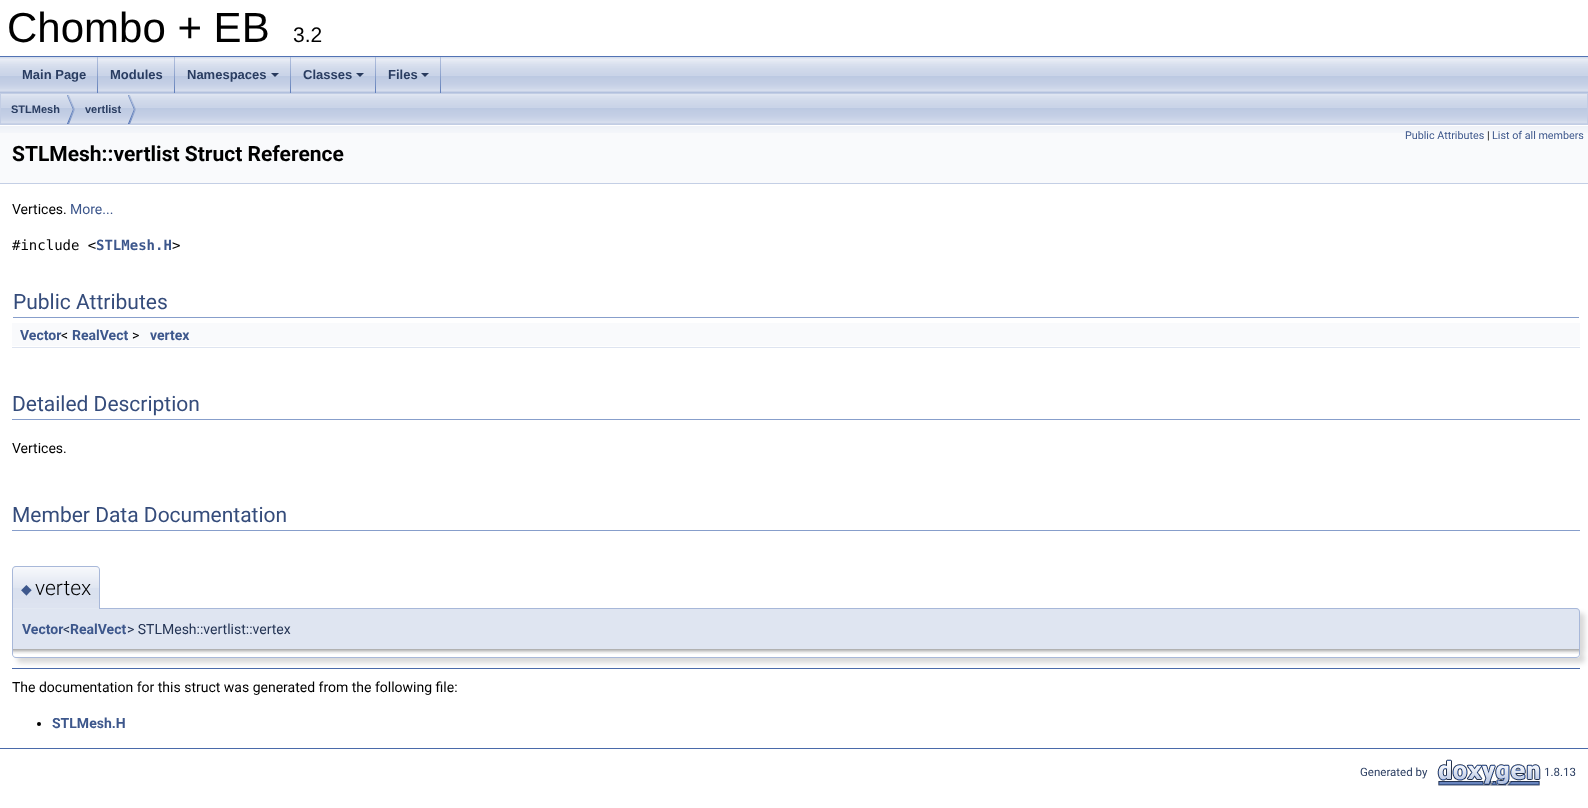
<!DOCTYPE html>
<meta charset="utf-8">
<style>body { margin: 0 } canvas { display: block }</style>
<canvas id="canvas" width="1588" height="808"></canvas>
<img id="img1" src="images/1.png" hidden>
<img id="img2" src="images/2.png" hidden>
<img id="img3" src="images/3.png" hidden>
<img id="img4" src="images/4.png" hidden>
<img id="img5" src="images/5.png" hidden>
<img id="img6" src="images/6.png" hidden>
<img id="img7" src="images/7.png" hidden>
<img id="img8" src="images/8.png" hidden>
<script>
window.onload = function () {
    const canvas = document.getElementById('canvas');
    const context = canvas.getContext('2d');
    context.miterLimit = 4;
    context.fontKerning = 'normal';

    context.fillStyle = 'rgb(255, 255, 255)';
    context.fillRect(0, 0, 1588, 808);
    context.fillStyle = 'rgb(83, 115, 180)';
    context.fillRect(0, 56, 1588, 1);
    context.drawImage(document.getElementById('img1'), 0, 57, 1588, 36);
    context.drawImage(document.getElementById('img2'), 97, 57, 1, 36);
    context.drawImage(document.getElementById('img2'), 174, 57, 1, 36);
    context.drawImage(document.getElementById('img2'), 290, 57, 1, 36);
    context.fillStyle = 'rgb(40, 58, 93)';
    context.beginPath();
    context.moveTo(271, 73);
    context.lineTo(279, 73);
    context.lineTo(275, 77);
    context.closePath();
    context.fill();
    context.drawImage(document.getElementById('img2'), 375, 57, 1, 36);
    context.beginPath();
    context.moveTo(356, 73);
    context.lineTo(364, 73);
    context.lineTo(360, 77);
    context.closePath();
    context.fill();
    context.drawImage(document.getElementById('img2'), 440, 57, 1, 36);
    context.beginPath();
    context.moveTo(421, 73);
    context.lineTo(429, 73);
    context.lineTo(425, 77);
    context.closePath();
    context.fill();
    context.drawImage(document.getElementById('img3'), 1, 94, 1586, 30);
    context.strokeStyle = 'rgb(194, 205, 228)';
    context.strokeRect(0.5, 93.5, 1587, 31);
    context.drawImage(document.getElementById('img4'), 67, 95, 8, 29);
    context.drawImage(document.getElementById('img4'), 128, 95, 8, 29);
    context.fillStyle = 'rgb(249, 250, 252)';
    context.fillRect(0, 133, 1588, 50);
    context.drawImage(document.getElementById('img5'), 0, 125, 1588, 8);
    context.fillStyle = 'rgb(196, 207, 229)';
    context.fillRect(0, 183, 1588, 1);
    context.fillStyle = 'rgb(135, 158, 203)';
    context.fillRect(13, 317, 1566, 1);
    context.fillStyle = 'rgb(249, 250, 252)';
    context.fillRect(12, 323, 1568, 23);
    context.fillStyle = 'rgb(222, 228, 240)';
    context.fillRect(12, 347, 1568, 1);
    context.fillStyle = 'rgb(135, 158, 203)';
    context.fillRect(12, 419, 1568, 1);
    context.fillRect(12, 530, 1568, 1);
    context.fillStyle = 'rgba(0, 0, 0, 0.15)';
    context.filter = 'blur(2.5px)';
    context.beginPath();
    context.roundRect(17, 613, 1568, 41, 4);
    context.fill();
    context.filter = 'none';
    context.fillStyle = 'rgb(223, 229, 241)';
    context.beginPath();
    context.roundRect(12, 608, 1568, 41, [0, 4, 0, 0]);
    context.fill();
    context.fillStyle = 'rgb(168, 184, 217)';
    context.beginPath();
    context.moveTo(12, 608);
    context.lineTo(1576, 608);
    context.bezierCurveTo(1578, 608, 1580, 610, 1580, 612);
    context.lineTo(1580, 649);
    context.lineTo(12, 649);
    context.closePath();
    context.moveTo(13, 609);
    context.lineTo(1576, 609);
    context.bezierCurveTo(1578, 609, 1579, 610, 1579, 612);
    context.lineTo(1579, 649);
    context.lineTo(13, 649);
    context.closePath();
    context.fill('evenodd');
    context.fillStyle = 'rgb(226, 232, 242)';
    context.beginPath();
    context.roundRect(12, 566, 88, 43, [4, 4, 0, 0]);
    context.fill();
    context.drawImage(document.getElementById('img6'), 12, 567, 88, 41);
    context.fillStyle = 'rgb(168, 184, 217)';
    context.beginPath();
    context.moveTo(16, 566);
    context.lineTo(96, 566);
    context.bezierCurveTo(98, 566, 100, 568, 100, 570);
    context.lineTo(100, 609);
    context.lineTo(12, 609);
    context.lineTo(12, 570);
    context.bezierCurveTo(12, 568, 14, 566, 16, 566);
    context.closePath();
    context.moveTo(16, 567);
    context.lineTo(96, 567);
    context.bezierCurveTo(98, 567, 99, 568, 99, 570);
    context.lineTo(99, 609);
    context.lineTo(13, 609);
    context.lineTo(13, 570);
    context.bezierCurveTo(13, 568, 14, 567, 16, 567);
    context.closePath();
    context.fill('evenodd');
    context.fillStyle = 'rgba(0, 0, 0, 0.15)';
    context.filter = 'blur(2.5px)';
    context.beginPath();
    context.roundRect(17, 654, 1568, 9, 4);
    context.fill();
    context.filter = 'none';
    context.fillStyle = 'rgb(255, 255, 255)';
    context.beginPath();
    context.roundRect(12, 649, 1568, 9, [0, 0, 4, 4]);
    context.fill();
    context.drawImage(document.getElementById('img7'), 13, 649, 1566, 5);
    context.fillStyle = 'rgb(168, 184, 217)';
    context.beginPath();
    context.moveTo(12, 649);
    context.lineTo(1580, 649);
    context.lineTo(1580, 654);
    context.bezierCurveTo(1580, 656, 1578, 658, 1576, 658);
    context.lineTo(16, 658);
    context.bezierCurveTo(14, 658, 12, 656, 12, 654);
    context.closePath();
    context.moveTo(13, 649);
    context.lineTo(1579, 649);
    context.lineTo(1579, 654);
    context.bezierCurveTo(1579, 656, 1578, 657, 1576, 657);
    context.lineTo(16, 657);
    context.bezierCurveTo(14, 657, 13, 656, 13, 654);
    context.closePath();
    context.fill('evenodd');
    context.fillStyle = 'rgb(74, 106, 170)';
    context.fillRect(12, 668, 1568, 1);
    context.fillStyle = 'rgb(0, 0, 0)';
    context.beginPath();
    context.arc(39, 724, 2, 0, 2 * Math.PI);
    context.fill();
    context.fillStyle = 'rgb(74, 106, 170)';
    context.fillRect(0, 748, 1588, 1);
    context.drawImage(document.getElementById('img8'), 1437, 759, 104, 27);
    context.font = '42px Liberation Sans';
    context.fillStyle = 'rgb(0, 0, 0)';
    context.fillText('Chombo + EB', 7, 42);
    context.font = '21px Liberation Sans';
    context.fillText('3.2', 293, 42);
    context.font = 'bold 13px Liberation Sans';
    context.fillStyle = 'rgb(42, 61, 97)';
    context.fillText('Main Page', 22, 79);
    context.fillText('Modules', 110, 79);
    context.fillText('Namespaces', 187, 79);
    context.fillText('Classes', 303, 79);
    context.fillText('Files', 388, 79);
    context.font = 'bold 11px Liberation Sans';
    context.fillText('STLMesh', 11, 113);
    context.fillText('vertlist', 85, 113);
    context.font = '10.75px Roboto';
    context.fillStyle = 'rgb(61, 87, 140)';
    context.fillText('Public Attributes', 1405, 139);
    context.fillStyle = 'rgb(0, 0, 0)';
    context.fillText('|', 1487, 139);
    context.fillStyle = 'rgb(61, 87, 140)';
    context.fillText('List of all members', 1492, 139);
    context.font = 'bold 21px Roboto';
    context.fillStyle = 'rgb(0, 0, 0)';
    context.fillText('STLMesh::vertlist Struct Reference', 12, 161);
    context.font = '14px Roboto';
    context.fillText('Vertices.', 12, 214);
    context.fillStyle = 'rgb(61, 87, 140)';
    context.fillText('More...', 70, 214);
    context.font = '14px DejaVu Sans Mono';
    context.fillStyle = 'rgb(0, 0, 0)';
    context.fillText('#include <', 12, 250);
    context.font = 'bold 14px DejaVu Sans Mono';
    context.fillStyle = 'rgb(61, 87, 140)';
    context.fillText('STLMesh.H', 96, 250);
    context.font = '14px DejaVu Sans Mono';
    context.fillStyle = 'rgb(0, 0, 0)';
    context.fillText('>', 172, 250);
    context.font = '21px Roboto';
    context.fillStyle = 'rgb(53, 76, 123)';
    context.fillText('Public Attributes', 13, 309);
    context.font = 'bold 14px Roboto';
    context.fillStyle = 'rgb(61, 87, 140)';
    context.fillText('Vector', 20, 340);
    context.font = '14px Roboto';
    context.fillStyle = 'rgb(0, 0, 0)';
    context.fillText('<', 61, 340);
    context.font = 'bold 14px Roboto';
    context.fillStyle = 'rgb(61, 87, 140)';
    context.fillText('RealVect', 72, 340);
    context.font = '14px Roboto';
    context.fillStyle = 'rgb(0, 0, 0)';
    context.fillText('>', 132, 340);
    context.font = 'bold 14px Roboto';
    context.fillStyle = 'rgb(61, 87, 140)';
    context.fillText('vertex', 150, 340);
    context.font = '21px Roboto';
    context.fillStyle = 'rgb(53, 76, 123)';
    context.fillText('Detailed Description', 12, 411);
    context.font = '14px Roboto';
    context.fillStyle = 'rgb(0, 0, 0)';
    context.fillText('Vertices.', 12, 453);
    context.font = '21px Roboto';
    context.fillStyle = 'rgb(53, 76, 123)';
    context.fillText('Member Data Documentation', 12, 522);
    context.font = '14px DejaVu Sans';
    context.fillStyle = 'rgb(61, 87, 140)';
    context.fillText('◆', 21, 594);
    context.font = '300 21px Roboto';
    context.fillStyle = 'rgb(0, 0, 0)';
    context.fillText('vertex', 35, 595);
    context.font = 'bold 14px Roboto';
    context.fillStyle = 'rgb(61, 87, 140)';
    context.fillText('Vector', 22, 634);
    context.font = '14px Roboto';
    context.fillStyle = 'rgb(37, 53, 85)';
    context.fillText('<', 63, 634);
    context.font = 'bold 14px Roboto';
    context.fillStyle = 'rgb(61, 87, 140)';
    context.fillText('RealVect', 70, 634);
    context.font = '14px Roboto';
    context.fillStyle = 'rgb(37, 53, 85)';
    context.fillText('> STLMesh::vertlist::vertex', 127, 634);
    context.fillStyle = 'rgb(0, 0, 0)';
    context.fillText('The documentation for this struct was generated from the following file:', 12, 692);
    context.font = 'bold 14px Roboto';
    context.fillStyle = 'rgb(61, 87, 140)';
    context.fillText('STLMesh.H', 52, 728);
    context.font = '11.5px Roboto';
    context.fillStyle = 'rgb(42, 61, 97)';
    context.fillText('Generated by', 1360, 776);
    context.fillText('1.8.13', 1544, 776);
};
</script>
